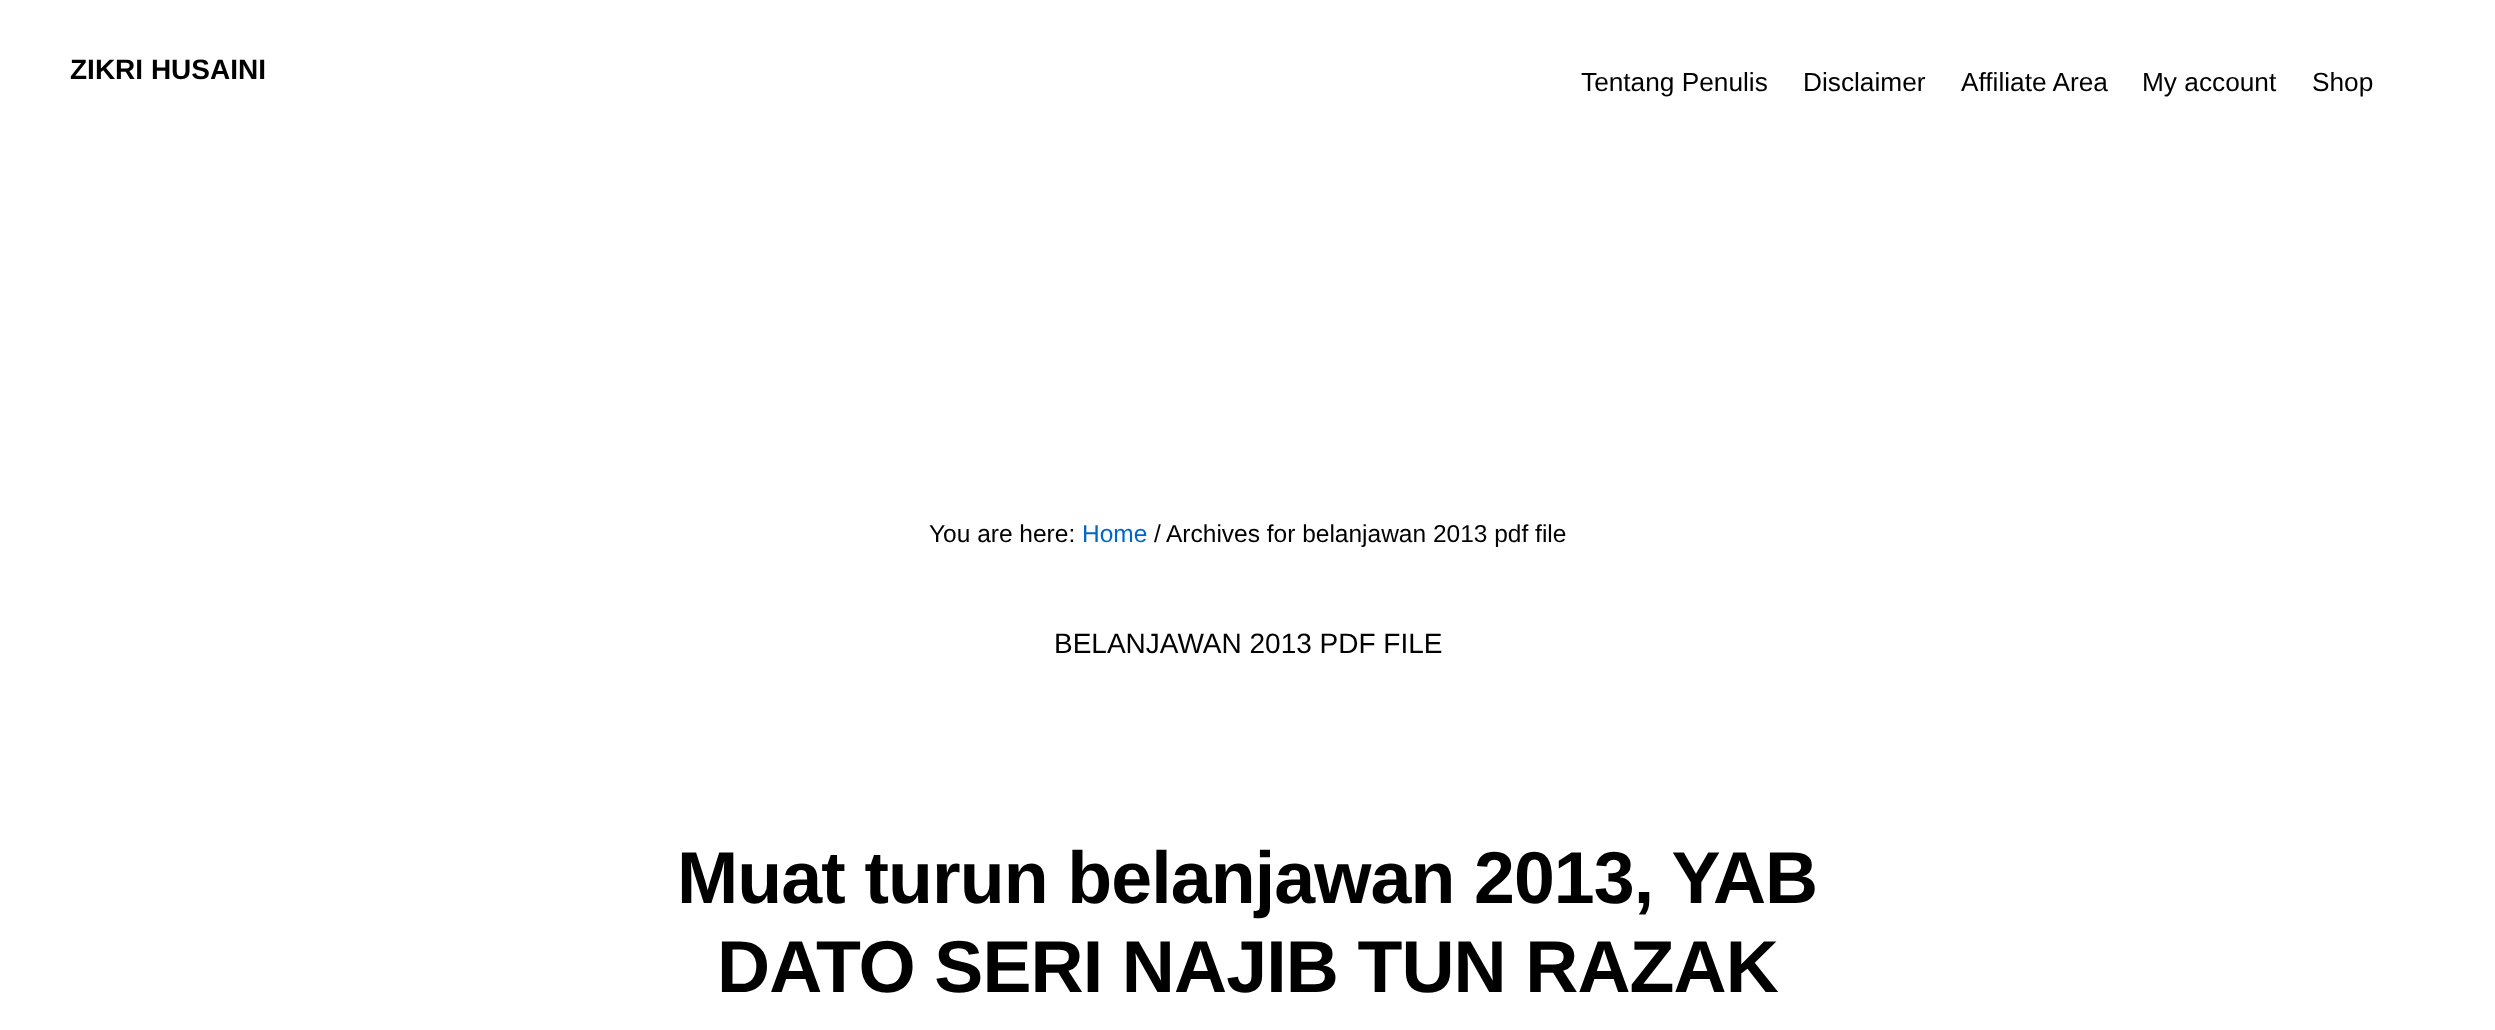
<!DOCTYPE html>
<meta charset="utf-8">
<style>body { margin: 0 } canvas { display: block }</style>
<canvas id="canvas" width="2495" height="1030"></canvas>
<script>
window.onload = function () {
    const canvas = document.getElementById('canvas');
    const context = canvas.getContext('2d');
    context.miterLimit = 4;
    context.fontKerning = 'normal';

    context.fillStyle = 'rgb(255, 255, 255)';
    context.fillRect(0, 0, 2495, 1030);
    context.font = 'bold 28px Liberation Sans';
    context.fillStyle = 'rgb(0, 0, 0)';
    context.fillText('ZIKRI HUSAINI', 70, 79);
    context.font = '26.25px Liberation Sans';
    context.fillText('Tentang Penulis', 1581, 91);
    context.fillText('Disclaimer', 1803, 91);
    context.fillText('Affiliate Area', 1961, 91);
    context.fillText('My account', 2142, 91);
    context.fillText('Shop', 2312, 91);
    context.font = '24.5px Liberation Sans';
    context.fillText('You are here:', 929, 542);
    context.fillStyle = 'rgb(0, 102, 204)';
    context.fillText('Home', 1082, 542);
    context.fillStyle = 'rgb(0, 0, 0)';
    context.fillText('/', 1154, 542);
    context.fillText('Archives for belanjawan 2013 pdf file', 1166, 542);
    context.font = '28px Liberation Sans';
    context.fillText('BELANJAWAN 2013 PDF FILE', 1054, 653);
    context.letterSpacing = '-0.9px';
    context.font = 'bold 73.5px Liberation Sans';
    context.fillText('Muat turun belanjawan 2013, YAB', 677, 903);
    context.fillText('DATO SERI NAJIB TUN RAZAK', 717, 992);
};
</script>
